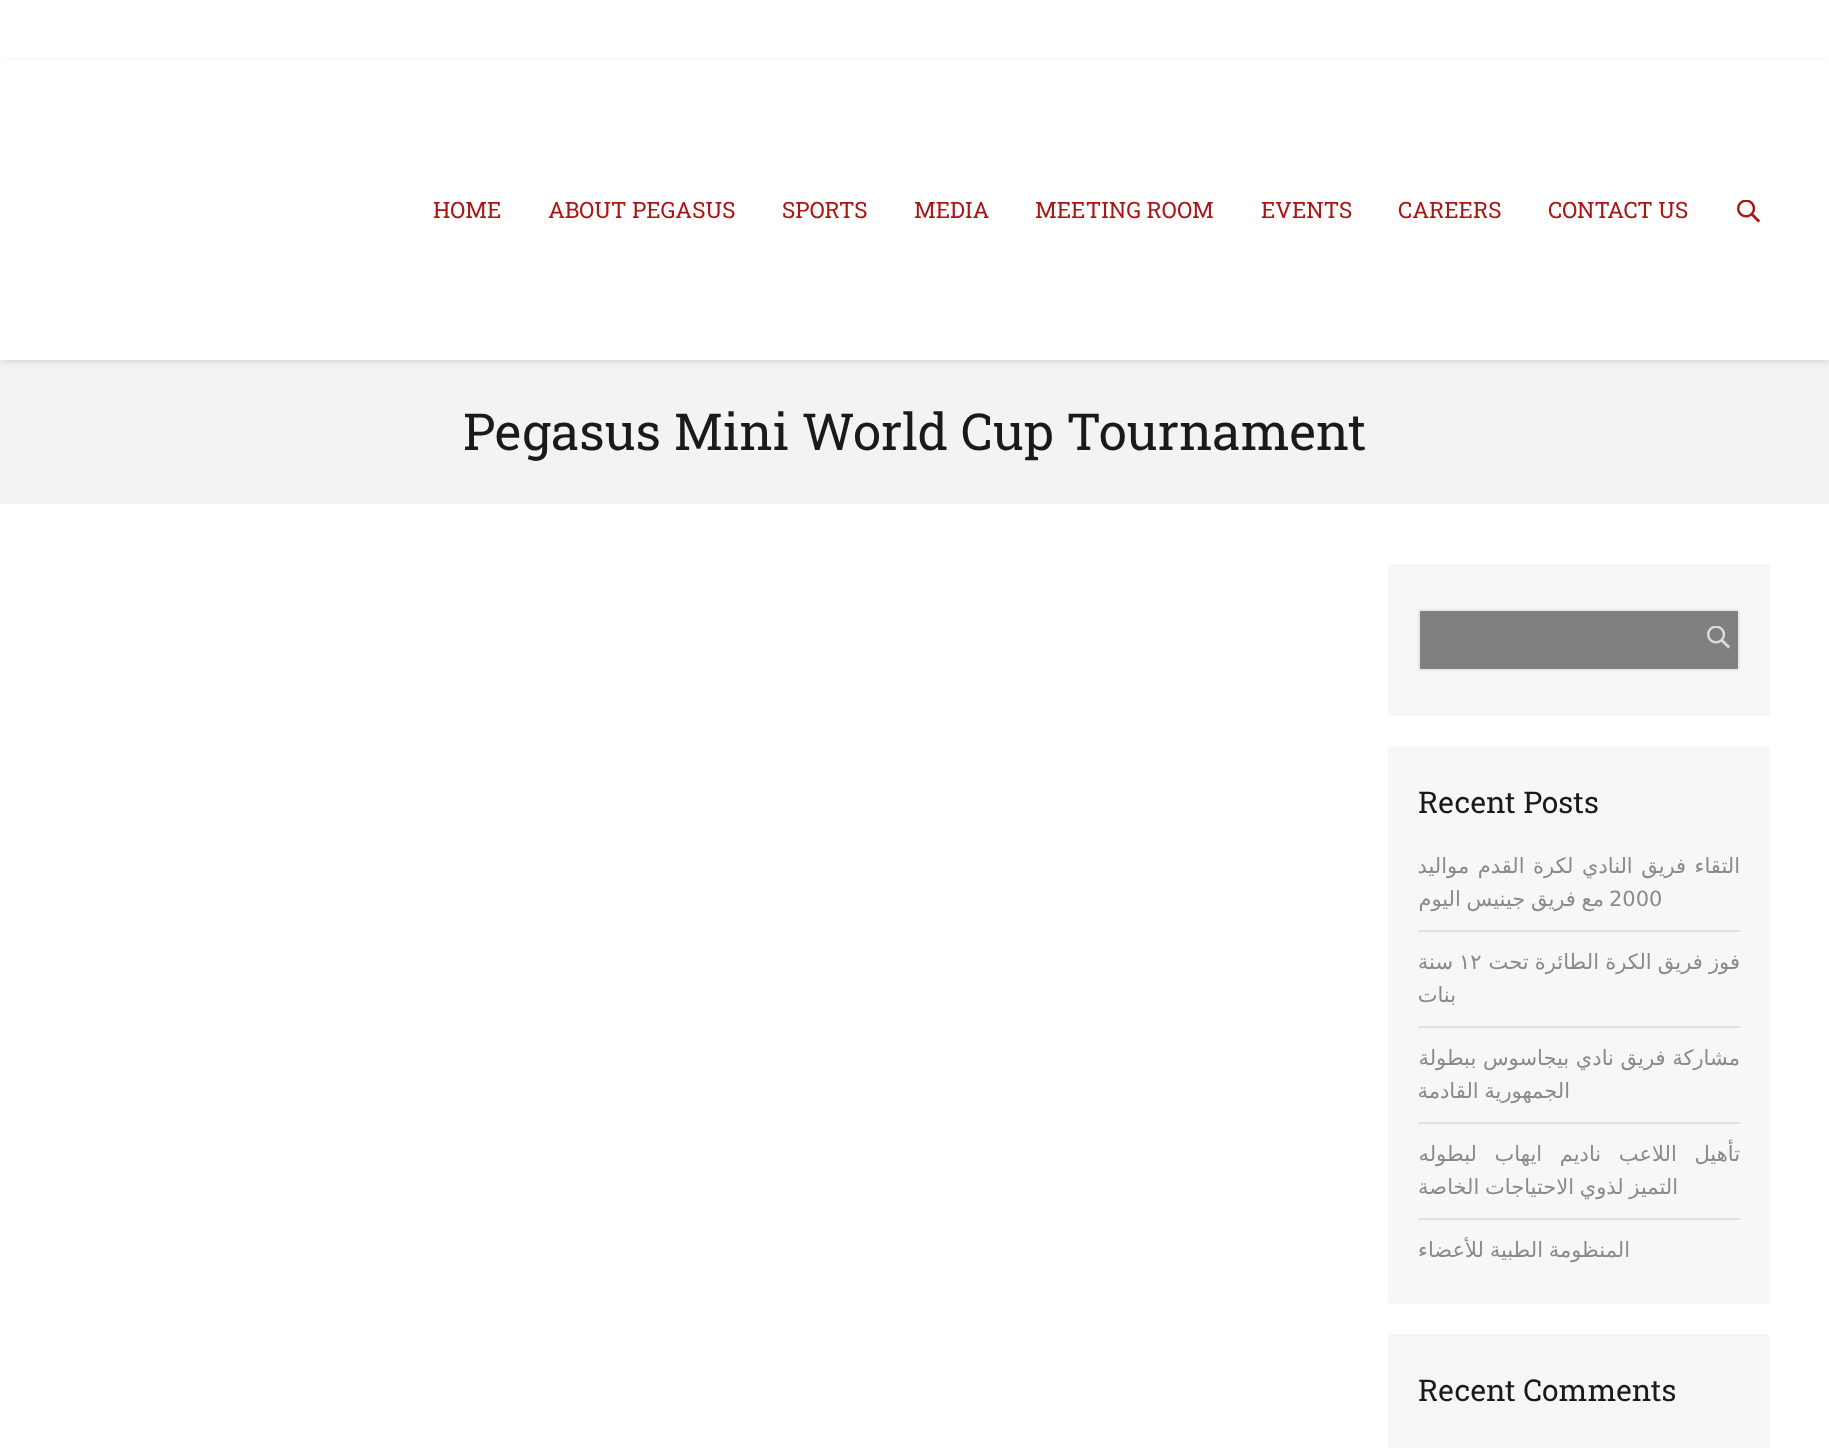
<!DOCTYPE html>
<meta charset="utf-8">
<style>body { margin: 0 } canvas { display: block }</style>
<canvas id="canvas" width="1829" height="1448"></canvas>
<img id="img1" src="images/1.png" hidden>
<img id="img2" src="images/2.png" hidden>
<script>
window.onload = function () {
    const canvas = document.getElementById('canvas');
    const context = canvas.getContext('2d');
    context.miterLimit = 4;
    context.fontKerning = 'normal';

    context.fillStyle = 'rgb(255, 255, 255)';
    context.fillRect(0, 0, 1829, 1448);
    context.save();
    context.beginPath();
    context.moveTo(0, 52);
    context.lineTo(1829, 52);
    context.lineTo(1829, 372);
    context.lineTo(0, 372);
    context.closePath();
    context.moveTo(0, 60);
    context.lineTo(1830, 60);
    context.lineTo(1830, 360);
    context.lineTo(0, 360);
    context.closePath();
    context.clip('evenodd');
    context.fillStyle = 'rgba(0, 0, 0, 0.1)';
    context.filter = 'blur(3px)';
    context.beginPath();
    context.rect(0, 62, 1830, 300);
    context.fill();
    context.filter = 'none';
    context.restore();
    context.drawImage(document.getElementById('img1'), 1737, 200, 24, 23);
    context.fillStyle = 'rgba(28, 26, 24, 0.05)';
    context.fillRect(0, 360, 1829, 144);
    context.fillStyle = 'rgb(246, 246, 246)';
    context.beginPath();
    context.roundRect(1388, 564, 382, 152, 3);
    context.fill();
    context.fillStyle = 'rgb(128, 128, 128)';
    context.beginPath();
    context.roundRect(1419, 610, 320, 60, 2);
    context.fill();
    context.strokeStyle = 'rgb(232, 232, 232)';
    context.lineWidth = 2;
    context.stroke();
    context.drawImage(document.getElementById('img2'), 1707, 626, 24, 23);
    context.fillStyle = 'rgb(247, 247, 246)';
    context.beginPath();
    context.roundRect(1388, 746, 382, 558, 3);
    context.fill();
    context.fillStyle = 'rgb(225, 225, 224)';
    context.fillRect(1418, 930, 322, 2);
    context.fillRect(1418, 1026, 322, 2);
    context.fillRect(1418, 1122, 322, 2);
    context.fillRect(1418, 1218, 322, 2);
    context.fillStyle = 'rgb(246, 246, 246)';
    context.beginPath();
    context.roundRect(1388, 1334, 382, 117, 3);
    context.fill();
    context.font = '22.5px Roboto Slab';
    context.fillStyle = 'rgb(170, 21, 21)';
    context.fillText('CONTACT US', 1548, 218);
    context.fillText('CAREERS', 1398, 218);
    context.fillText('EVENTS', 1261, 218);
    context.fillText('MEETING ROOM', 1035, 218);
    context.fillText('MEDIA', 914, 218);
    context.fillText('SPORTS', 782, 218);
    context.fillText('ABOUT PEGASUS', 548, 218);
    context.fillText('HOME', 433, 218);
    context.font = '51px Roboto Slab';
    context.fillStyle = 'rgb(28, 26, 24)';
    context.fillText('Pegasus Mini World Cup Tournament', 463, 450);
    context.font = '30px Roboto Slab';
    context.fillText('Recent Posts', 1418, 813);
    context.wordSpacing = '1.75px';
    context.direction = 'rtl';
    context.font = '21px DejaVu Sans';
    context.fillStyle = 'rgb(139, 138, 136)';
    context.fillText('التقاء فريق النادي لكرة القدم مواليد', 1740, 873);
    context.wordSpacing = '0px';
    context.direction = 'ltr';
    context.fillText('2000', 1609, 906);
    context.wordSpacing = '-1px';
    context.direction = 'rtl';
    context.fillText('مع فريق جينيس اليوم', 1604, 906);
    context.wordSpacing = '-0.5px';
    context.fillText('فوز فريق الكرة الطائرة تحت', 1740, 969);
    context.wordSpacing = '0px';
    context.direction = 'ltr';
    context.fillText('١٢', 1459, 969);
    context.direction = 'rtl';
    context.fillText('سنة', 1453, 969);
    context.fillText('بنات', 1456, 1002);
    context.fillText('مشاركة فريق نادي بيجاسوس ببطولة', 1740, 1065);
    context.wordSpacing = '-1px';
    context.fillText('الجمهورية القادمة', 1570, 1098);
    context.wordSpacing = '11px';
    context.fillText('تأهيل اللاعب ناديم ايهاب لبطوله', 1740, 1161);
    context.wordSpacing = '-1px';
    context.fillText('التميز لذوي الاحتياجات الخاصة', 1678, 1194);
    context.fillText('المنظومة الطبية للأعضاء', 1630, 1257);
    context.wordSpacing = '0px';
    context.direction = 'ltr';
    context.font = '30px Roboto Slab';
    context.fillStyle = 'rgb(28, 26, 24)';
    context.fillText('Recent Comments', 1418, 1401);
};
</script>
